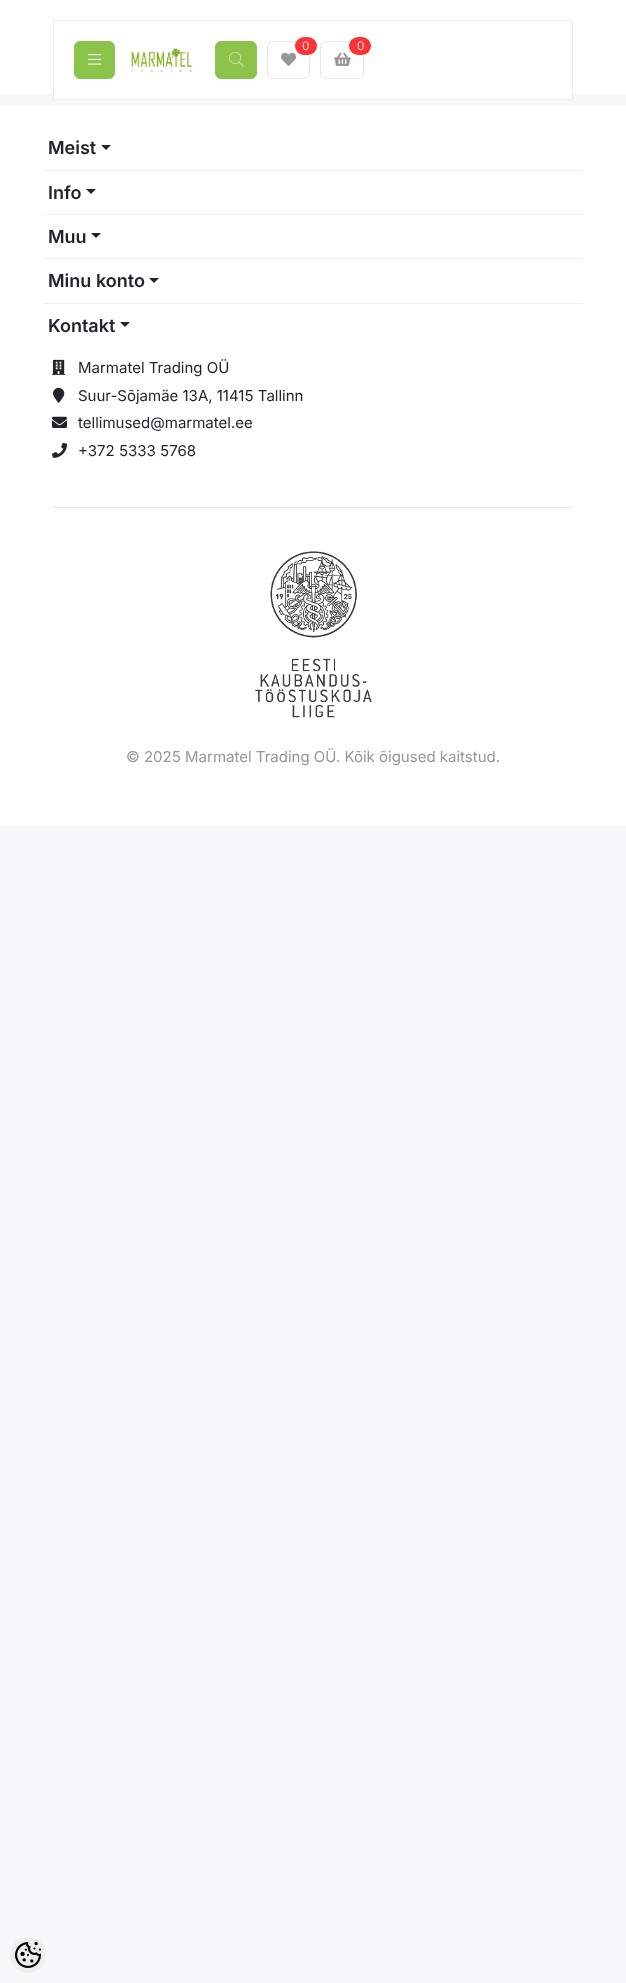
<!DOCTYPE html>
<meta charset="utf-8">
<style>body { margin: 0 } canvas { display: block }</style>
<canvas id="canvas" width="626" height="1983"></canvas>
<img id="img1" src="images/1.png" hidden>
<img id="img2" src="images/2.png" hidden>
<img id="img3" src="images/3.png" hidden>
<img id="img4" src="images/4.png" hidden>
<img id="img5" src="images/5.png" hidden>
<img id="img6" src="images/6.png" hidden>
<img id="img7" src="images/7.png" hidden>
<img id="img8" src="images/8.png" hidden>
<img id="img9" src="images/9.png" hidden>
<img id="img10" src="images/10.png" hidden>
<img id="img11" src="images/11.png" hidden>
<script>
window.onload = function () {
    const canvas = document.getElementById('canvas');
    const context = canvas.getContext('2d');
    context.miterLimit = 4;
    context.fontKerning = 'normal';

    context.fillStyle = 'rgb(246, 247, 249)';
    context.fillRect(0, 0, 626, 1983);
    context.fillStyle = 'rgb(255, 255, 255)';
    context.fillRect(0, 0, 626, 94);
    context.fillRect(54, 94, 518, 5);
    context.strokeStyle = 'rgb(235, 236, 240)';
    context.strokeRect(53.5, 20.5, 519, 79);
    context.fillStyle = 'rgb(139, 195, 75)';
    context.beginPath();
    context.roundRect(74.5, 41.5, 40, 37, 5.5);
    context.fill();
    context.strokeStyle = 'rgb(139, 195, 75)';
    context.stroke();
    context.drawImage(document.getElementById('img1'), 88, 54, 14, 11);
    context.beginPath();
    context.roundRect(215.5, 41.5, 41, 37, 5.5);
    context.fill();
    context.stroke();
    context.drawImage(document.getElementById('img2'), 229, 51, 15, 16);
    context.beginPath();
    context.roundRect(267.5, 41.5, 42, 37, 5.5);
    context.strokeStyle = 'rgb(229, 231, 234)';
    context.stroke();
    context.drawImage(document.getElementById('img3'), 281, 52, 15, 14);
    context.fillStyle = 'rgb(250, 52, 52)';
    context.beginPath();
    context.roundRect(295, 37, 22, 18, 9);
    context.fill();
    context.beginPath();
    context.roundRect(320.5, 41.5, 43, 37, 5.5);
    context.stroke();
    context.drawImage(document.getElementById('img4'), 334, 52, 17, 14);
    context.beginPath();
    context.roundRect(349, 37, 22, 18, 9);
    context.fill();
    context.drawImage(document.getElementById('img5'), 131, 48, 62, 25);
    context.fillStyle = 'rgb(255, 255, 255)';
    context.fillRect(0, 106, 626, 720);
    context.fillStyle = 'rgb(238, 238, 238)';
    context.fillRect(43, 170, 540, 1);
    context.fillStyle = 'rgb(33, 37, 41)';
    context.beginPath();
    context.moveTo(101, 145);
    context.lineTo(111, 145);
    context.lineTo(106, 150);
    context.closePath();
    context.fill();
    context.fillStyle = 'rgb(238, 238, 238)';
    context.fillRect(43, 214, 540, 1);
    context.fillStyle = 'rgb(33, 37, 41)';
    context.beginPath();
    context.moveTo(86, 189);
    context.lineTo(96, 189);
    context.lineTo(91, 194);
    context.closePath();
    context.fill();
    context.fillStyle = 'rgb(238, 238, 238)';
    context.fillRect(43, 258, 540, 1);
    context.fillStyle = 'rgb(33, 37, 41)';
    context.beginPath();
    context.moveTo(91, 233);
    context.lineTo(101, 233);
    context.lineTo(96, 238);
    context.closePath();
    context.fill();
    context.fillStyle = 'rgb(238, 238, 238)';
    context.fillRect(43, 303, 540, 1);
    context.fillStyle = 'rgb(33, 37, 41)';
    context.beginPath();
    context.moveTo(149, 278);
    context.lineTo(159, 278);
    context.lineTo(154, 283);
    context.closePath();
    context.fill();
    context.beginPath();
    context.moveTo(120, 322);
    context.lineTo(130, 322);
    context.lineTo(125, 327);
    context.closePath();
    context.fill();
    context.drawImage(document.getElementById('img6'), 52, 359, 14, 16);
    context.drawImage(document.getElementById('img7'), 53, 387, 12, 16);
    context.drawImage(document.getElementById('img8'), 52, 416, 15, 12);
    context.drawImage(document.getElementById('img9'), 52, 442, 15, 16);
    context.fillStyle = 'rgb(229, 231, 234)';
    context.fillRect(53, 507, 520, 1);
    context.drawImage(document.getElementById('img10'), 255, 551, 117, 167);
    context.fillStyle = 'rgb(238, 238, 238)';
    context.beginPath();
    context.arc(28, 1955, 18, 0, 2 * Math.PI);
    context.fill();
    context.drawImage(document.getElementById('img11'), 15, 1942, 26, 26);
    context.font = '300 12px Inter';
    context.fillStyle = 'rgb(255, 255, 255)';
    context.fillText('0', 302, 50);
    context.fillText('0', 357, 50);
    context.font = '600 18px Inter';
    context.fillStyle = 'rgb(33, 37, 41)';
    context.fillText('Meist', 48, 154);
    context.fillText('Info', 48, 199);
    context.fillText('Muu', 48, 243);
    context.fillText('Minu konto', 48, 287);
    context.fillText('Kontakt', 48, 332);
    context.font = '15px Inter';
    context.fillText('Marmatel Trading OÜ', 78, 373);
    context.fillText('Suur-Sõjamäe 13A, 11415 Tallinn', 78, 401);
    context.fillText('tellimused@marmatel.ee', 78, 428);
    context.fillText('+372 5333 5768', 78, 456);
    context.fillStyle = 'rgb(150, 150, 150)';
    context.fillText('© 2025 Marmatel Trading OÜ. Kõik õigused kaitstud.', 126, 762);
};
</script>
